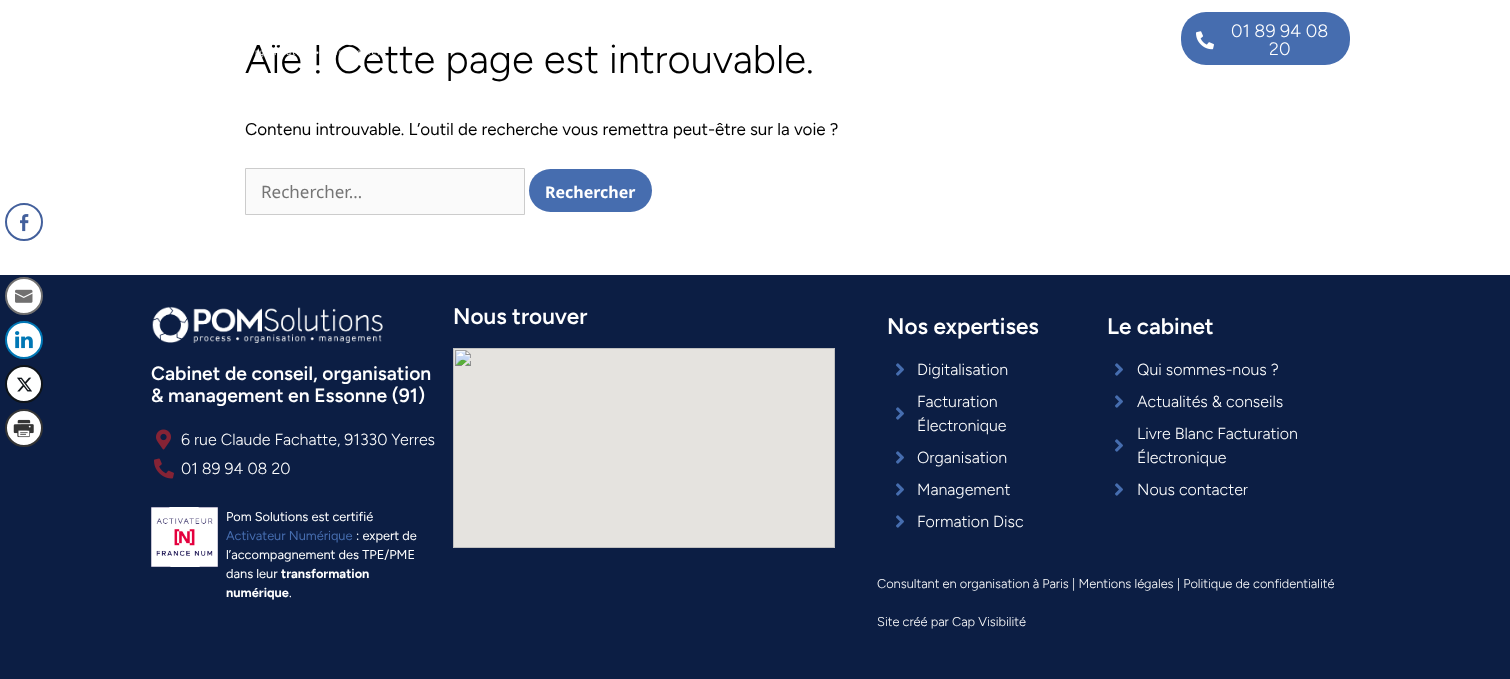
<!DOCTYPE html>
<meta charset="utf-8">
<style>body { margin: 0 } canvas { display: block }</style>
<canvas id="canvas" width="1510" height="679"></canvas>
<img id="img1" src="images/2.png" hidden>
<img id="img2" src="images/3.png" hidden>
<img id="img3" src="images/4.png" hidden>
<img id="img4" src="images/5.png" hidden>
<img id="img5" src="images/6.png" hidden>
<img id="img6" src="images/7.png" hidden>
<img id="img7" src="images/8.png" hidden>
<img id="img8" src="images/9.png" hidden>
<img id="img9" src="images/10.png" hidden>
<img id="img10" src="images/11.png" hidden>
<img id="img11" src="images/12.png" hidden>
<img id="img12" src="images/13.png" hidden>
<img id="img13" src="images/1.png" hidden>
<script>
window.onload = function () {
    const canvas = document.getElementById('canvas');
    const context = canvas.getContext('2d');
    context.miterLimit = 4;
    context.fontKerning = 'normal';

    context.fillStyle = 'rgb(255, 255, 255)';
    context.fillRect(0, 0, 1510, 679);
    context.fillStyle = 'rgb(70, 109, 175)';
    context.beginPath();
    context.roundRect(1181, 12, 169, 53, 25);
    context.fill();
    context.drawImage(document.getElementById('img1'), 1196, 31, 18, 19);
    context.fillStyle = 'rgb(250, 250, 250)';
    context.beginPath();
    context.rect(245.5, 168.5, 279, 46);
    context.fill();
    context.strokeStyle = 'rgb(204, 204, 204)';
    context.stroke();
    context.fillStyle = 'rgb(70, 109, 175)';
    context.beginPath();
    context.roundRect(529, 169, 123, 43, 21.5);
    context.fill();
    context.beginPath();
    context.arc(24, 222, 18, 0, 2 * Math.PI);
    context.strokeStyle = 'rgb(67, 96, 156)';
    context.lineWidth = 2;
    context.stroke();
    context.drawImage(document.getElementById('img2'), 20, 214, 9, 18);
    context.fillStyle = 'rgb(12, 30, 68)';
    context.fillRect(0, 275, 1510, 404);
    context.fillStyle = 'rgb(255, 255, 255)';
    context.beginPath();
    context.arc(24, 296, 18, 0, 2 * Math.PI);
    context.fill();
    context.strokeStyle = 'rgb(113, 112, 112)';
    context.stroke();
    context.drawImage(document.getElementById('img3'), 15, 289, 18, 14);
    context.beginPath();
    context.arc(24, 340, 18, 0, 2 * Math.PI);
    context.fill();
    context.strokeStyle = 'rgb(0, 119, 181)';
    context.stroke();
    context.drawImage(document.getElementById('img4'), 15, 331, 18, 18);
    context.beginPath();
    context.arc(24, 384, 18, 0, 2 * Math.PI);
    context.fill();
    context.strokeStyle = 'rgb(15, 20, 25)';
    context.stroke();
    context.drawImage(document.getElementById('img5'), 17, 377, 15, 15);
    context.beginPath();
    context.arc(24, 428, 18, 0, 2 * Math.PI);
    context.fill();
    context.strokeStyle = 'rgb(53, 53, 53)';
    context.stroke();
    context.drawImage(document.getElementById('img6'), 13, 419, 21, 19);
    context.drawImage(document.getElementById('img7'), 152, 306, 231, 37);
    context.drawImage(document.getElementById('img8'), 156, 429, 15, 21);
    context.drawImage(document.getElementById('img9'), 154, 458, 20, 21);
    context.drawImage(document.getElementById('img10'), 151, 507, 67, 60);
    context.drawImage(document.getElementById('img11'), 453, 348, 382, 200);
    context.drawImage(document.getElementById('img12'), 896, 363, 8, 13);
    context.drawImage(document.getElementById('img12'), 896, 407, 8, 13);
    context.drawImage(document.getElementById('img12'), 896, 451, 8, 13);
    context.drawImage(document.getElementById('img12'), 896, 483, 8, 13);
    context.drawImage(document.getElementById('img12'), 896, 515, 8, 13);
    context.drawImage(document.getElementById('img12'), 1115, 363, 8, 13);
    context.drawImage(document.getElementById('img12'), 1115, 395, 8, 13);
    context.drawImage(document.getElementById('img12'), 1115, 439, 8, 13);
    context.drawImage(document.getElementById('img12'), 1115, 483, 8, 13);
    context.font = '300 18px Figtree';
    context.fillText('01 89 94 08', 1231, 37);
    context.fillText('20', 1269, 55);
    context.font = '300 40px Figtree';
    context.fillStyle = 'rgb(0, 0, 0)';
    context.fillText('Aïe ! Cette page est introuvable.', 245, 73);
    context.drawImage(document.getElementById('img13'), 252, 44, 135, 14);
    context.font = '17px Figtree';
    context.fillText('Contenu introuvable. L’outil de recherche vous remettra peut-être sur la voie ?', 245, 135);
    context.font = '17px Noto Sans';
    context.fillStyle = 'rgb(117, 117, 117)';
    context.fillText('Rechercher…', 261, 198);
    context.font = 'bold 16px Noto Sans';
    context.fillStyle = 'rgb(255, 255, 255)';
    context.fillText('Rechercher', 545, 198);
    context.font = '600 19.25px Figtree';
    context.fillText('Cabinet de conseil, organisation', 151, 380);
    context.fillText('& management en Essonne (91)', 151, 402);
    context.font = '300 16px Figtree';
    context.fillText('6 rue Claude Fachatte, 91330 Yerres', 181, 445);
    context.fillText('01 89 94 08 20', 181, 474);
    context.font = '12.8px Figtree';
    context.fillText('Pom Solutions est certifié', 226, 521);
    context.fillStyle = 'rgb(70, 109, 175)';
    context.fillText('Activateur Numérique', 226, 540);
    context.fillStyle = 'rgb(255, 255, 255)';
    context.fillText(': expert de', 356, 540);
    context.fillText('l’accompagnement des TPE/PME', 226, 559);
    context.fillText('dans leur', 226, 578);
    context.font = 'bold 12.8px Figtree';
    context.fillText('transformation', 281, 578);
    context.fillText('numérique', 226, 597);
    context.font = '12.8px Figtree';
    context.fillText('.', 289, 597);
    context.font = '600 22.5px Figtree';
    context.fillText('Nous trouver', 453, 324);
    context.fillText('Nos expertises', 887, 334);
    context.font = '300 16px Figtree';
    context.fillText('Digitalisation', 917, 375);
    context.fillText('Facturation', 917, 407);
    context.fillText('Électronique', 917, 431);
    context.fillText('Organisation', 917, 463);
    context.fillText('Management', 917, 495);
    context.fillText('Formation Disc', 917, 527);
    context.font = '600 22.5px Figtree';
    context.fillText('Le cabinet', 1107, 334);
    context.font = '300 16px Figtree';
    context.fillText('Qui sommes-nous ?', 1137, 375);
    context.fillText('Actualités & conseils', 1137, 407);
    context.fillText('Livre Blanc Facturation', 1137, 439);
    context.fillText('Électronique', 1137, 463);
    context.fillText('Nous contacter', 1137, 495);
    context.font = '300 12.8px Figtree';
    context.fillText('Consultant en organisation à Paris | Mentions légales | Politique de confidentialité', 877, 588);
    context.fillText('Site créé par Cap Visibilité', 877, 626);
};
</script>
